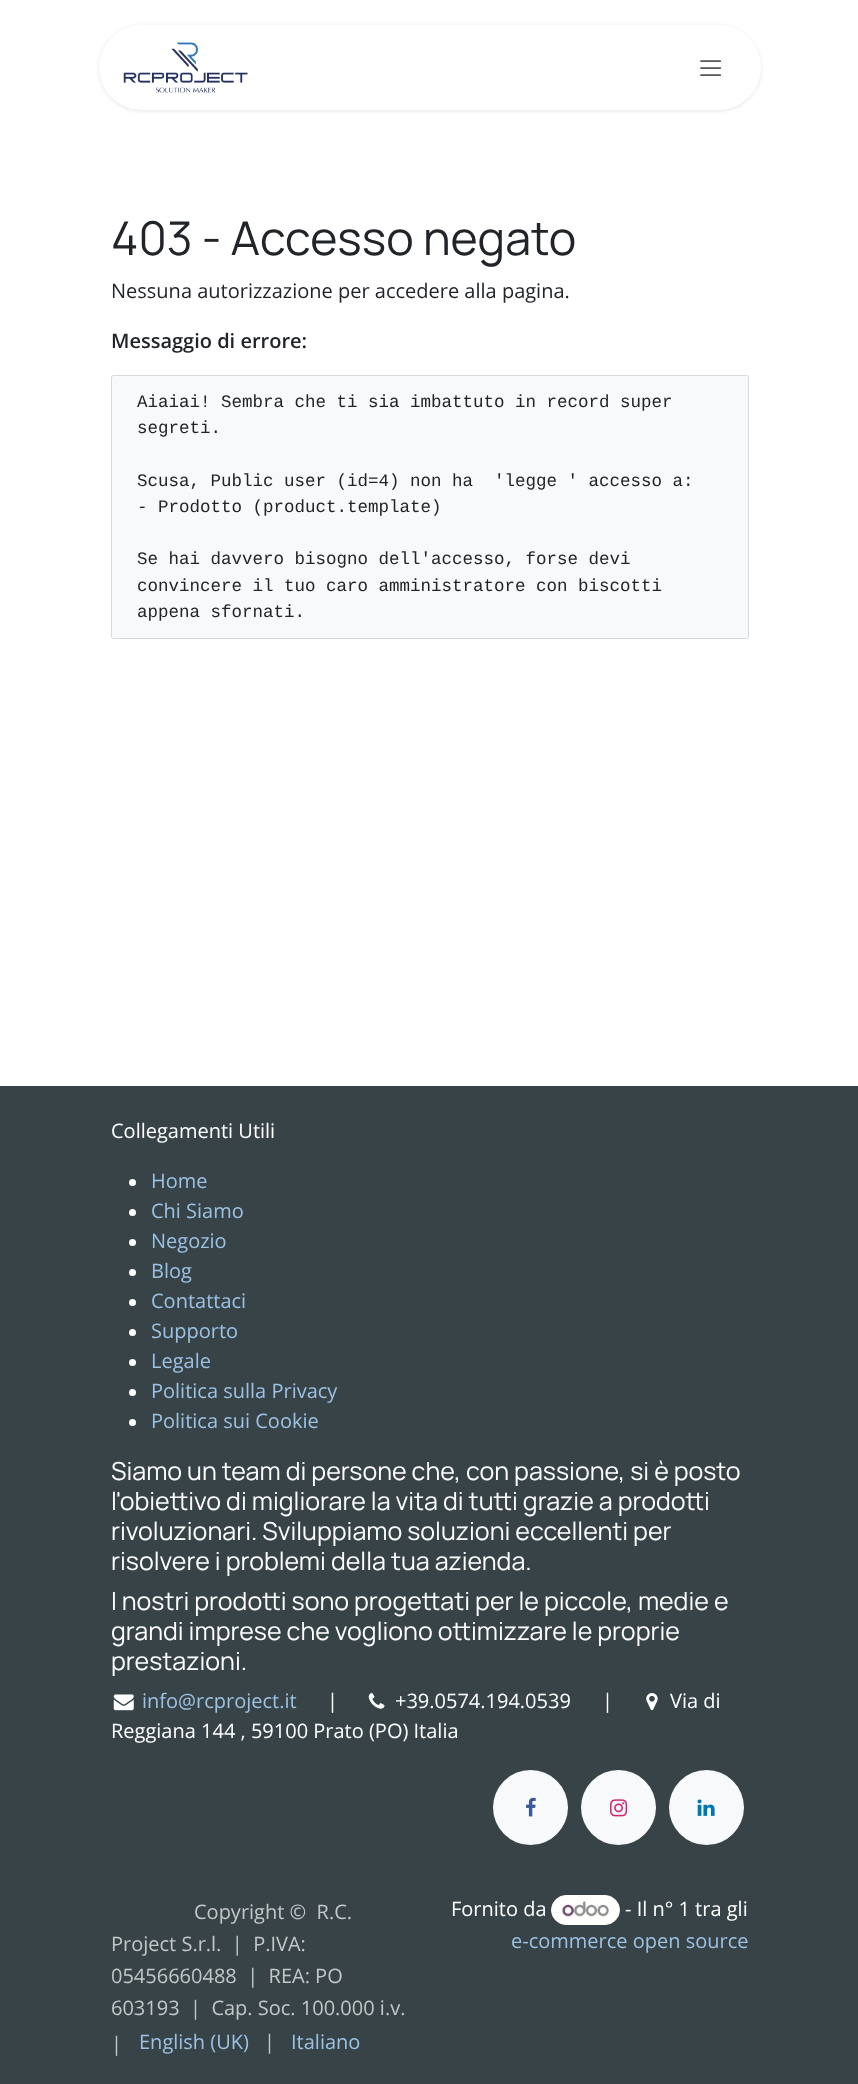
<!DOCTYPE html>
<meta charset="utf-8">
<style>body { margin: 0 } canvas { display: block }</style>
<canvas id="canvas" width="858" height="2084"></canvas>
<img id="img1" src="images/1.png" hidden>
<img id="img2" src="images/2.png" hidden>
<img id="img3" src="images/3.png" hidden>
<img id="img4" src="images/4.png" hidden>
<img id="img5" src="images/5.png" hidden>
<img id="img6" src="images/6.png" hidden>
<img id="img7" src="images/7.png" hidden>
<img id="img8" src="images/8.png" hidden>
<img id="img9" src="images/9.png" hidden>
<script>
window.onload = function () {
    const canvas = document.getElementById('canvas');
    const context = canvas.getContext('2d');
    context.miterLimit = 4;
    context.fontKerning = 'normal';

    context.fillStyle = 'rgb(255, 255, 255)';
    context.fillRect(0, 0, 858, 2084);
    context.fillStyle = 'rgba(0, 0, 0, 0.1)';
    context.filter = 'blur(2px)';
    context.beginPath();
    context.roundRect(99, 26, 662, 85, 42.5);
    context.fill();
    context.filter = 'none';
    context.fillStyle = 'rgb(255, 255, 255)';
    context.beginPath();
    context.roundRect(99, 25, 662, 85, 42.5);
    context.fill();
    context.drawImage(document.getElementById('img1'), 123, 42, 125, 51);
    context.drawImage(document.getElementById('img2'), 700, 60, 22, 16);
    context.fillStyle = 'rgb(248, 249, 250)';
    context.beginPath();
    context.roundRect(111.5, 375.5, 637, 263, 2);
    context.fill();
    context.strokeStyle = 'rgb(216, 217, 219)';
    context.stroke();
    context.fillStyle = 'rgb(56, 67, 71)';
    context.fillRect(0, 1086, 858, 998);
    context.fillStyle = 'rgb(255, 255, 255)';
    context.beginPath();
    context.arc(132.5, 1182.5, 3.5, 0, 2 * Math.PI);
    context.fill();
    context.beginPath();
    context.arc(132.5, 1212.5, 3.5, 0, 2 * Math.PI);
    context.fill();
    context.beginPath();
    context.arc(132.5, 1242.5, 3.5, 0, 2 * Math.PI);
    context.fill();
    context.beginPath();
    context.arc(132.5, 1272.5, 3.5, 0, 2 * Math.PI);
    context.fill();
    context.beginPath();
    context.arc(132.5, 1302.5, 3.5, 0, 2 * Math.PI);
    context.fill();
    context.beginPath();
    context.arc(132.5, 1332.5, 3.5, 0, 2 * Math.PI);
    context.fill();
    context.beginPath();
    context.arc(132.5, 1362.5, 3.5, 0, 2 * Math.PI);
    context.fill();
    context.beginPath();
    context.arc(132.5, 1392.5, 3.5, 0, 2 * Math.PI);
    context.fill();
    context.beginPath();
    context.arc(132.5, 1422.5, 3.5, 0, 2 * Math.PI);
    context.fill();
    context.drawImage(document.getElementById('img3'), 113, 1694, 21, 17);
    context.drawImage(document.getElementById('img4'), 368, 1693, 17, 16);
    context.drawImage(document.getElementById('img5'), 646, 1693, 12, 18);
    context.fillStyle = 'rgb(248, 249, 250)';
    context.beginPath();
    context.arc(530.5, 1807.5, 37.5, 0, 2 * Math.PI);
    context.fill();
    context.drawImage(document.getElementById('img6'), 526, 1797, 10, 20);
    context.beginPath();
    context.arc(618.5, 1807.5, 37.5, 0, 2 * Math.PI);
    context.fill();
    context.drawImage(document.getElementById('img7'), 610, 1799, 18, 18);
    context.beginPath();
    context.arc(706.5, 1807.5, 37.5, 0, 2 * Math.PI);
    context.fill();
    context.drawImage(document.getElementById('img8'), 697, 1799, 18, 17);
    context.fillStyle = 'rgb(255, 255, 254)';
    context.beginPath();
    context.roundRect(551.5, 1895.5, 68, 29, 14.5);
    context.fill();
    context.strokeStyle = 'rgb(255, 251, 246)';
    context.stroke();
    context.drawImage(document.getElementById('img9'), 562, 1901, 47, 16);
    context.font = '46.5px Manrope';
    context.fillStyle = 'rgb(33, 37, 41)';
    context.fillText('403 - Accesso negato', 111, 255);
    context.font = '20px Open Sans';
    context.fillText('Nessuna autorizzazione per accedere alla pagina.', 111, 298);
    context.font = '600 20px Open Sans';
    context.fillText('Messaggio di errore:', 111, 348);
    context.font = '17.5px Liberation Mono';
    context.fillText('Aiaiai! Sembra che ti sia imbattuto in record super', 137, 407);
    context.fillText('segreti.', 137, 433);
    context.fillText('Scusa, Public user (id=4) non ha  \'legge \' accesso a:', 137, 486);
    context.fillText('- Prodotto (product.template)', 137, 512);
    context.fillText('Se hai davvero bisogno dell\'accesso, forse devi', 137, 564);
    context.fillText('convincere il tuo caro amministratore con biscotti', 137, 591);
    context.fillText('appena sfornati.', 137, 617);
    context.font = '20px Open Sans';
    context.fillStyle = 'rgb(255, 255, 255)';
    context.fillText('Collegamenti Utili', 111, 1138);
    context.fillStyle = 'rgb(156, 194, 227)';
    context.fillText('Home', 151, 1188);
    context.fillText('Chi Siamo', 151, 1218);
    context.fillText('Negozio', 151, 1248);
    context.fillText('Blog', 151, 1278);
    context.fillText('Contattaci', 151, 1308);
    context.fillText('Supporto', 151, 1338);
    context.fillText('Legale', 151, 1368);
    context.fillText('Politica sulla Privacy', 151, 1398);
    context.fillText('Politica sui Cookie', 151, 1428);
    context.font = '25px Manrope';
    context.fillStyle = 'rgb(255, 255, 255)';
    context.fillText('Siamo un team di persone che, con passione, si è posto', 111, 1480);
    context.fillText('l\'obiettivo di migliorare la vita di tutti grazie a prodotti', 111, 1510);
    context.fillText('rivoluzionari. Sviluppiamo soluzioni eccellenti per', 111, 1540);
    context.fillText('risolvere i problemi della tua azienda.', 111, 1570);
    context.fillText('I nostri prodotti sono progettati per le piccole, medie e', 111, 1610);
    context.fillText('grandi imprese che vogliono ottimizzare le proprie', 111, 1640);
    context.fillText('prestazioni.', 111, 1670);
    context.font = '20px Open Sans';
    context.fillStyle = 'rgb(156, 194, 227)';
    context.fillText('info@rcproject.it', 142, 1708);
    context.fillStyle = 'rgb(255, 255, 255)';
    context.fillText('|', 327, 1708);
    context.fillText('+39.0574.194.0539      |', 395, 1708);
    context.fillText('Via di', 670, 1708);
    context.fillText('Reggiana 144 , 59100 Prato (PO) Italia', 111, 1738);
    context.fillStyle = 'rgb(195, 199, 200)';
    context.fillText('Copyright ©  R.C.', 194, 1919);
    context.fillText('Project S.r.l.  |  P.IVA:', 111, 1951);
    context.fillText('05456660488  |  REA: PO', 111, 1983);
    context.fillText('603193  |  Cap. Soc. 100.000 i.v.', 111, 2015);
    context.fillText('|', 111, 2051);
    context.fillStyle = 'rgb(156, 194, 227)';
    context.fillText('English (UK)', 139, 2049);
    context.fillStyle = 'rgb(195, 199, 200)';
    context.fillText('|', 264, 2049);
    context.fillStyle = 'rgb(156, 194, 227)';
    context.fillText('Italiano', 291, 2049);
    context.fillStyle = 'rgb(255, 255, 255)';
    context.fillText('Fornito da', 451, 1916);
    context.fillText('- Il n° 1 tra gli', 625, 1916);
    context.fillStyle = 'rgb(156, 194, 227)';
    context.fillText('e-commerce open source', 511, 1948);
};
</script>
